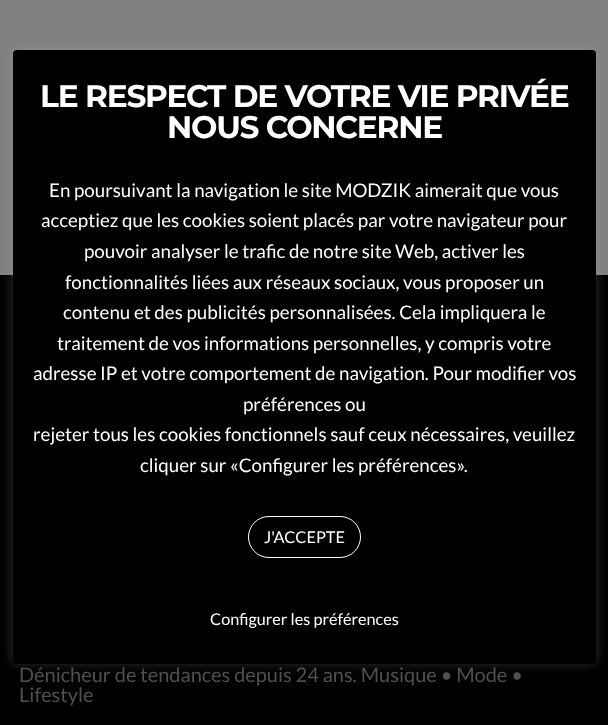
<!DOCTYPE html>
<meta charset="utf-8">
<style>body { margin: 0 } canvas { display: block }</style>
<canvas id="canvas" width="608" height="725"></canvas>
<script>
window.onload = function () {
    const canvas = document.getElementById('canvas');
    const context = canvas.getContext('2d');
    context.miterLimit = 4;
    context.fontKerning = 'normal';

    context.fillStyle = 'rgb(128, 128, 128)';
    context.fillRect(0, 0, 608, 725);
    context.fillStyle = 'rgb(0, 0, 0)';
    context.fillRect(0, 275, 608, 450);
    context.fillStyle = 'rgba(172, 171, 171, 0.3)';
    context.filter = 'blur(6px)';
    context.beginPath();
    context.roundRect(13, 49, 583, 614, 4);
    context.fill();
    context.filter = 'none';
    context.fillStyle = 'rgb(0, 0, 0)';
    context.beginPath();
    context.roundRect(13, 50, 583, 614, 4);
    context.fill();
    context.beginPath();
    context.roundRect(248.5, 516.5, 112, 41, 20.5);
    context.strokeStyle = 'rgb(255, 255, 255)';
    context.stroke();
    context.letterSpacing = '-1.25px';
    context.font = 'bold 31.25px Montserrat';
    context.fillStyle = 'rgb(255, 255, 255)';
    context.fillText('LE RESPECT DE VOTRE VIE PRIVÉE', 40, 107);
    context.fillText('NOUS CONCERNE', 167, 138);
    context.letterSpacing = '0px';
    context.font = '18.75px Lato';
    context.fillText('En poursuivant la navigation le site MODZIK aimerait que vous', 49, 197);
    context.fillText('acceptiez que les cookies soient placés par votre navigateur pour', 41, 227);
    context.fillText('pouvoir analyser le trafic de notre site Web, activer les', 84, 258);
    context.fillText('fonctionnalités liées aux réseaux sociaux, vous proposer un', 65, 289);
    context.fillText('contenu et des publicités personnalisées. Cela impliquera le', 63, 319);
    context.fillText('traitement de vos informations personnelles, y compris votre', 57, 350);
    context.fillText('adresse IP et votre comportement de navigation. Pour modifier vos', 33, 380);
    context.fillText('préférences ou', 243, 411);
    context.fillText('rejeter tous les cookies fonctionnels sauf ceux nécessaires, veuillez', 33, 441);
    context.fillText('cliquer sur «Configurer les préférences».', 140, 472);
    context.font = '16.25px Lato';
    context.fillText('J\'ACCEPTE', 264, 543);
    context.fillText('Configurer les préférences', 210, 625);
    context.font = '20px Lato';
    context.fillStyle = 'rgb(80, 80, 80)';
    context.fillText('Dénicheur de tendances depuis 24 ans. Musique • Mode •', 19, 682);
    context.fillText('Lifestyle', 19, 702);
};
</script>
